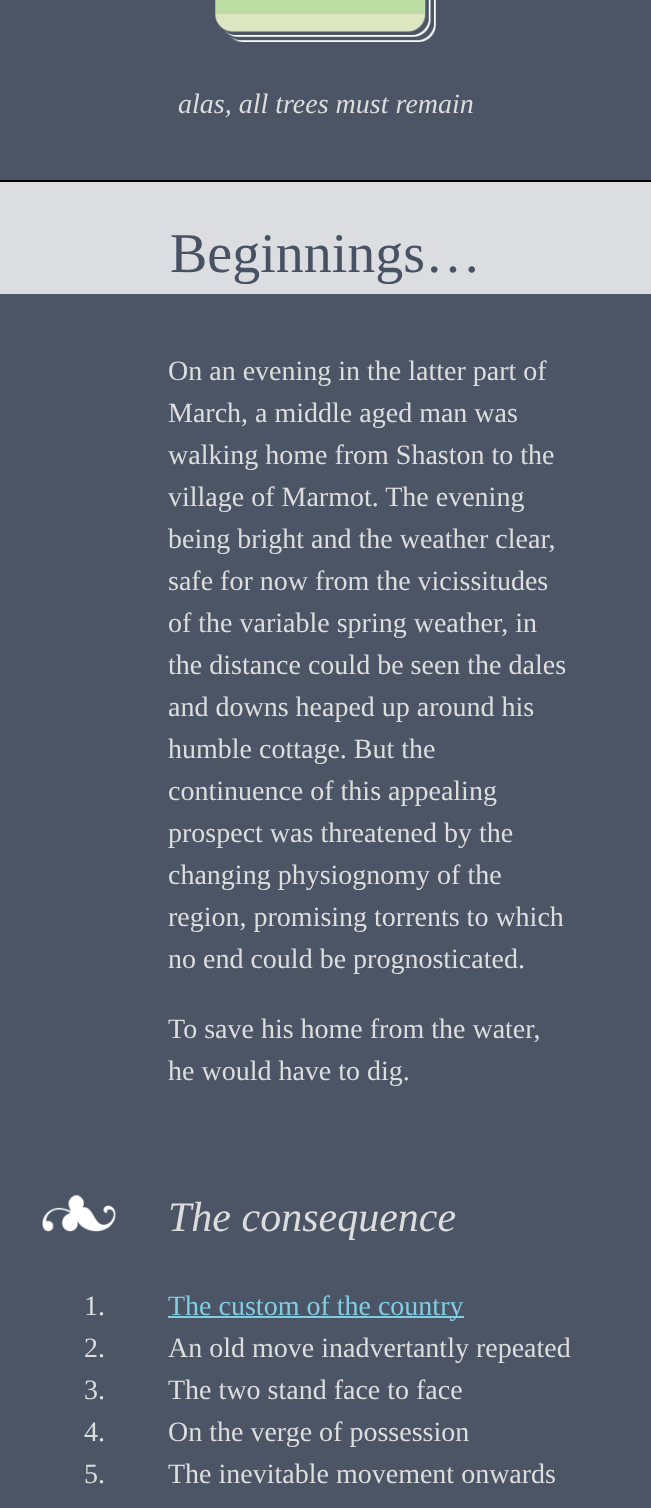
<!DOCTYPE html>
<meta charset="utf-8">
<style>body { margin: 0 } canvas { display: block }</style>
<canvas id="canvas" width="651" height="1508"></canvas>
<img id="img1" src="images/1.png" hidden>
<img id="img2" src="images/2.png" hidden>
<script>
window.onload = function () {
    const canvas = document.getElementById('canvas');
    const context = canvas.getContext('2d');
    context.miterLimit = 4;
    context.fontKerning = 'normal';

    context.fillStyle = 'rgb(76, 85, 102)';
    context.fillRect(0, 0, 651, 1508);
    context.drawImage(document.getElementById('img1'), 215, 0, 221, 42);
    context.fillStyle = 'rgb(0, 0, 0)';
    context.fillRect(0, 180, 651, 2);
    context.fillStyle = 'rgb(219, 221, 224)';
    context.fillRect(0, 182, 651, 112);
    context.drawImage(document.getElementById('img2'), 42, 1195, 74, 37);
    context.fillStyle = 'rgb(130, 205, 226)';
    context.fillRect(168, 1316, 296, 2);
    context.font = 'italic 28px Liberation Serif';
    context.fillStyle = 'rgb(221, 221, 221)';
    context.fillText('alas, all trees must remain', 178, 113);
    context.font = '56px Liberation Serif';
    context.fillStyle = 'rgb(73, 82, 99)';
    context.fillText('Beginnings…', 170, 272);
    context.font = '28px Liberation Serif';
    context.fillStyle = 'rgb(221, 221, 221)';
    context.fillText('On an evening in the latter part of', 168, 380);
    context.fillText('March, a middle aged man was', 168, 422);
    context.fillText('walking home from Shaston to the', 168, 464);
    context.fillText('village of Marmot. The evening', 168, 506);
    context.fillText('being bright and the weather clear,', 168, 548);
    context.fillText('safe for now from the vicissitudes', 168, 590);
    context.fillText('of the variable spring weather, in', 168, 632);
    context.fillText('the distance could be seen the dales', 168, 674);
    context.fillText('and downs heaped up around his', 168, 716);
    context.fillText('humble cottage. But the', 168, 758);
    context.fillText('continuence of this appealing', 168, 800);
    context.fillText('prospect was threatened by the', 168, 842);
    context.fillText('changing physiognomy of the', 168, 884);
    context.fillText('region, promising torrents to which', 168, 926);
    context.fillText('no end could be prognosticated.', 168, 968);
    context.fillText('To save his home from the water,', 168, 1038);
    context.fillText('he would have to dig.', 168, 1080);
    context.font = 'italic 42px Liberation Serif';
    context.fillText('The consequence', 168, 1231);
    context.font = '28px Liberation Serif';
    context.fillText('1.', 84, 1315);
    context.fillStyle = 'rgb(130, 205, 226)';
    context.fillText('The custom of the country', 168, 1315);
    context.fillStyle = 'rgb(221, 221, 221)';
    context.fillText('2.', 84, 1357);
    context.fillText('An old move inadvertantly repeated', 168, 1357);
    context.fillText('3.', 84, 1399);
    context.fillText('The two stand face to face', 168, 1399);
    context.fillText('4.', 84, 1441);
    context.fillText('On the verge of possession', 168, 1441);
    context.fillText('5.', 84, 1483);
    context.fillText('The inevitable movement onwards', 168, 1483);
};
</script>
